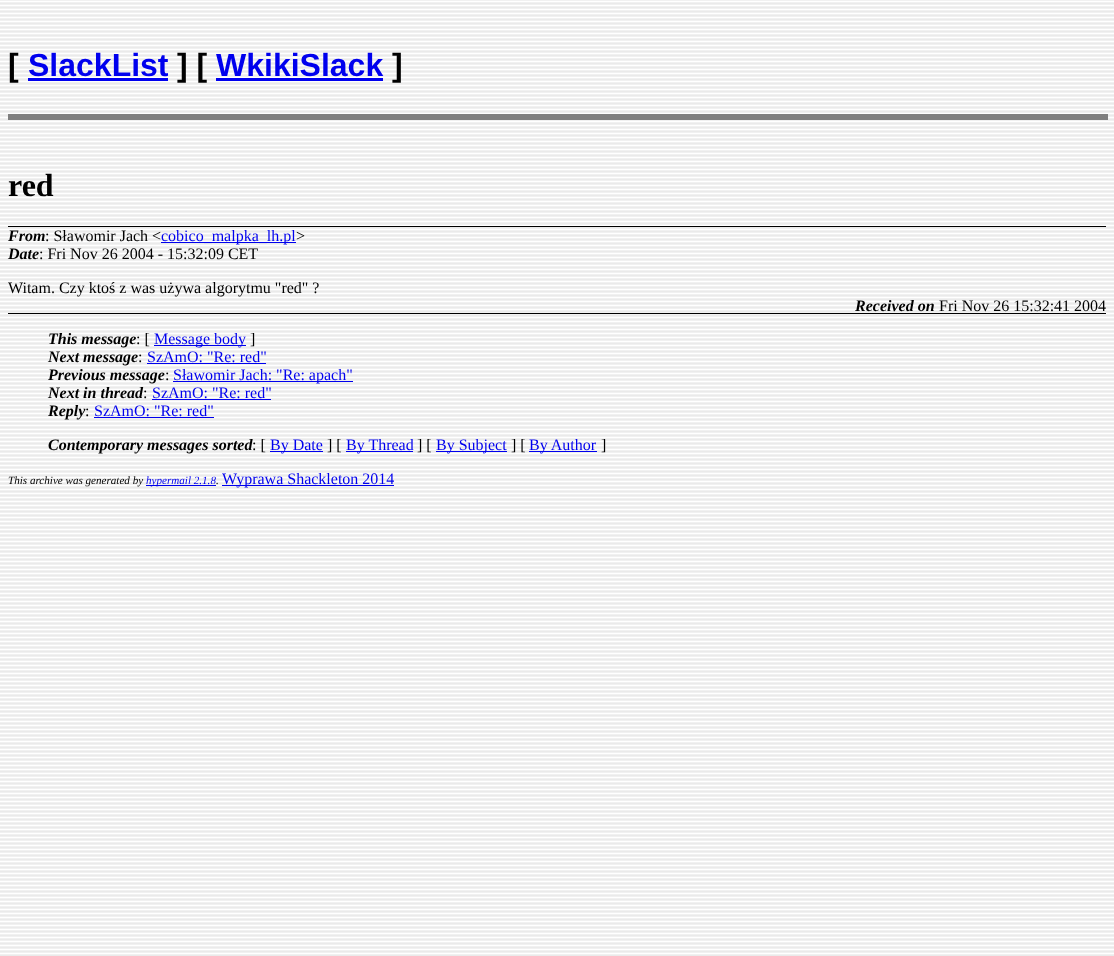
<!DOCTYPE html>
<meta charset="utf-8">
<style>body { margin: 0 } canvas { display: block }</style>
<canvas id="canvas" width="1114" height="956"></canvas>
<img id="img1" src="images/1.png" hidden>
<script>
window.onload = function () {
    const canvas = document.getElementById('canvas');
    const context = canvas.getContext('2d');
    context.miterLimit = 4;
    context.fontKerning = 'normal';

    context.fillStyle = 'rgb(255, 255, 255)';
    context.fillRect(0, 0, 1114, 956);
    context.drawImage(document.getElementById('img1'), 0, 0, 1114, 956);
    context.fillStyle = 'rgb(0, 0, 238)';
    context.fillRect(28, 78, 140, 3);
    context.fillRect(216, 78, 167, 3);
    context.fillStyle = 'rgb(128, 128, 128)';
    context.fillRect(8, 114, 1100, 6);
    context.fillStyle = 'rgb(0, 0, 0)';
    context.fillRect(8, 226, 1098, 1);
    context.fillStyle = 'rgb(0, 0, 238)';
    context.fillRect(161, 242, 135, 1);
    context.fillStyle = 'rgb(0, 0, 0)';
    context.fillRect(8, 313, 1098, 1);
    context.fillStyle = 'rgb(0, 0, 238)';
    context.fillRect(154, 345, 92, 1);
    context.fillRect(147, 363, 119, 1);
    context.fillRect(173, 381, 180, 1);
    context.fillRect(152, 399, 119, 1);
    context.fillRect(94, 417, 120, 1);
    context.fillRect(270, 451, 53, 1);
    context.fillRect(346, 451, 67, 1);
    context.fillRect(436, 451, 71, 1);
    context.fillRect(529, 451, 68, 1);
    context.fillRect(222, 485, 172, 1);
    context.fillRect(146, 485, 70, 1);
    context.font = 'bold 32px Liberation Sans';
    context.fillStyle = 'rgb(0, 0, 0)';
    context.fillText('[', 8, 76);
    context.fillStyle = 'rgb(0, 0, 238)';
    context.fillText('SlackList', 28, 76);
    context.fillStyle = 'rgb(0, 0, 0)';
    context.fillText('] [', 177, 76);
    context.fillStyle = 'rgb(0, 0, 238)';
    context.fillText('WkikiSlack', 216, 76);
    context.fillStyle = 'rgb(0, 0, 0)';
    context.fillText(']', 392, 76);
    context.font = 'bold 32px Liberation Serif';
    context.fillText('red', 8, 196);
    context.font = 'italic bold 16px Liberation Serif';
    context.fillText('From', 8, 241);
    context.font = '16px Liberation Serif';
    context.fillText(': Sławomir Jach <', 45, 241);
    context.fillStyle = 'rgb(0, 0, 238)';
    context.fillText('cobico_malpka_lh.pl', 161, 241);
    context.fillStyle = 'rgb(0, 0, 0)';
    context.fillText('>', 296, 241);
    context.font = 'italic bold 16px Liberation Serif';
    context.fillText('Date', 8, 259);
    context.font = '16px Liberation Serif';
    context.fillText(': Fri Nov 26 2004 - 15:32:09 CET', 39, 259);
    context.fillText('Witam. Czy ktoś z was używa algorytmu "red" ?', 8, 293);
    context.font = 'italic bold 16px Liberation Serif';
    context.fillText('Received on', 855, 311);
    context.font = '16px Liberation Serif';
    context.fillText('Fri Nov 26 15:32:41 2004', 939, 311);
    context.font = 'italic bold 16px Liberation Serif';
    context.fillText('This message', 48, 344);
    context.font = '16px Liberation Serif';
    context.fillText(': [', 136, 344);
    context.fillStyle = 'rgb(0, 0, 238)';
    context.fillText('Message body', 154, 344);
    context.fillStyle = 'rgb(0, 0, 0)';
    context.fillText(']', 250, 344);
    context.font = 'italic bold 16px Liberation Serif';
    context.fillText('Next message', 48, 362);
    context.font = '16px Liberation Serif';
    context.fillText(':', 138, 362);
    context.fillStyle = 'rgb(0, 0, 238)';
    context.fillText('SzAmO: "Re: red"', 147, 362);
    context.font = 'italic bold 16px Liberation Serif';
    context.fillStyle = 'rgb(0, 0, 0)';
    context.fillText('Previous message', 48, 380);
    context.font = '16px Liberation Serif';
    context.fillText(':', 165, 380);
    context.fillStyle = 'rgb(0, 0, 238)';
    context.fillText('Sławomir Jach: "Re: apach"', 173, 380);
    context.font = 'italic bold 16px Liberation Serif';
    context.fillStyle = 'rgb(0, 0, 0)';
    context.fillText('Next in thread', 48, 398);
    context.font = '16px Liberation Serif';
    context.fillText(':', 143, 398);
    context.fillStyle = 'rgb(0, 0, 238)';
    context.fillText('SzAmO: "Re: red"', 152, 398);
    context.font = 'italic bold 16px Liberation Serif';
    context.fillStyle = 'rgb(0, 0, 0)';
    context.fillText('Reply', 48, 416);
    context.font = '16px Liberation Serif';
    context.fillText(':', 85, 416);
    context.fillStyle = 'rgb(0, 0, 238)';
    context.fillText('SzAmO: "Re: red"', 94, 416);
    context.font = 'italic bold 16px Liberation Serif';
    context.fillStyle = 'rgb(0, 0, 0)';
    context.fillText('Contemporary messages sorted', 48, 450);
    context.font = '16px Liberation Serif';
    context.fillText(': [', 252, 450);
    context.fillStyle = 'rgb(0, 0, 238)';
    context.fillText('By Date', 270, 450);
    context.fillStyle = 'rgb(0, 0, 0)';
    context.fillText('] [', 327, 450);
    context.fillStyle = 'rgb(0, 0, 238)';
    context.fillText('By Thread', 346, 450);
    context.fillStyle = 'rgb(0, 0, 0)';
    context.fillText('] [', 417, 450);
    context.fillStyle = 'rgb(0, 0, 238)';
    context.fillText('By Subject', 436, 450);
    context.fillStyle = 'rgb(0, 0, 0)';
    context.fillText('] [', 511, 450);
    context.fillStyle = 'rgb(0, 0, 238)';
    context.fillText('By Author', 529, 450);
    context.fillStyle = 'rgb(0, 0, 0)';
    context.fillText(']', 601, 450);
    context.font = 'italic 11.1px Liberation Serif';
    context.fillText('This archive was generated by', 8, 484);
    context.fillStyle = 'rgb(0, 0, 238)';
    context.fillText('hypermail 2.1.8', 146, 484);
    context.font = '16px Liberation Serif';
    context.fillText('Wyprawa Shackleton 2014', 222, 484);
    context.font = 'italic 11.1px Liberation Serif';
    context.fillStyle = 'rgb(0, 0, 0)';
    context.fillText('.', 216, 484);
};
</script>
